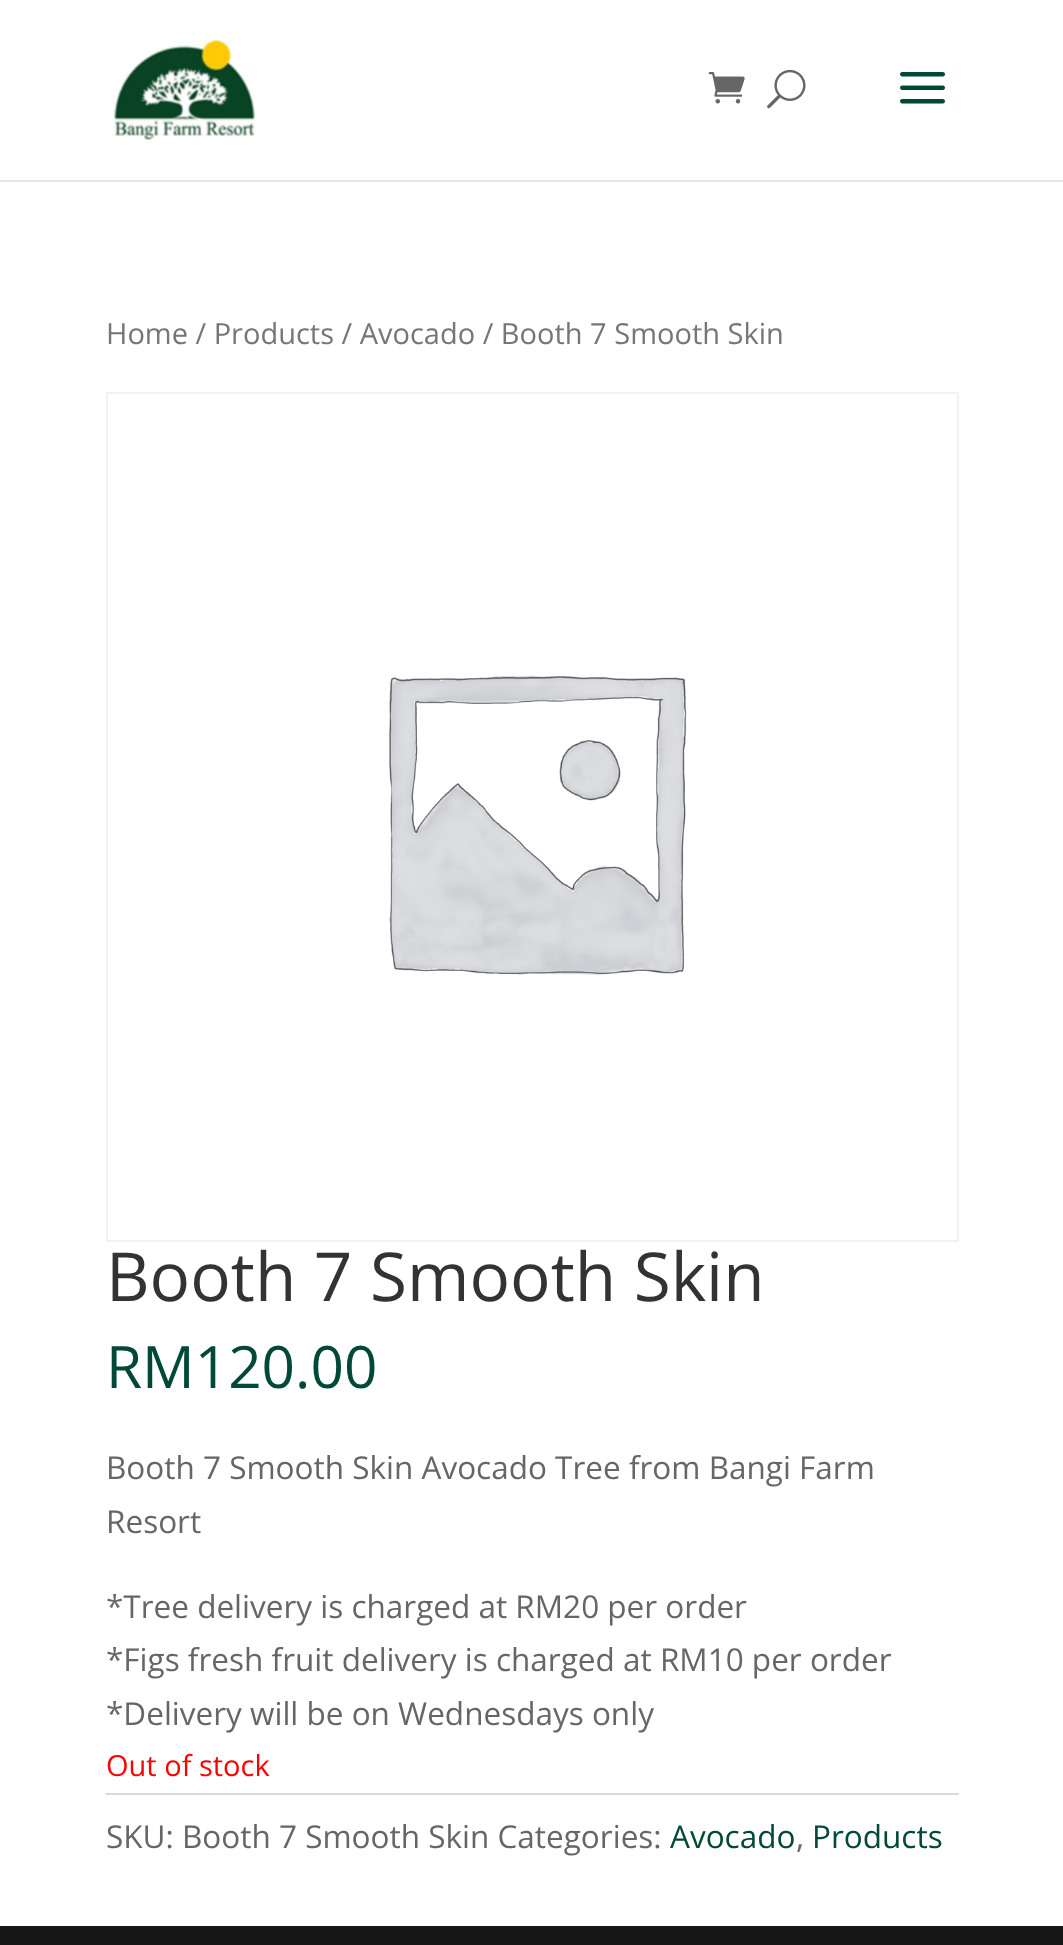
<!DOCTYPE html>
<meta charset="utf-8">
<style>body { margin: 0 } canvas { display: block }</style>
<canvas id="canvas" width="1063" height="1945"></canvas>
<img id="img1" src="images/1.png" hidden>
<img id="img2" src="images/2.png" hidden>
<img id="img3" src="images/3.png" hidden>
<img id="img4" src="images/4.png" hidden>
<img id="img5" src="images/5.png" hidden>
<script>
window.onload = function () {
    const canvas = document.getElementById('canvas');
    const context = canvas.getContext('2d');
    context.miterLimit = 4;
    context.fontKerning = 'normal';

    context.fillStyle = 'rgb(255, 255, 255)';
    context.fillRect(0, 0, 1063, 1945);
    context.fillStyle = 'rgb(230, 230, 230)';
    context.fillRect(0, 180, 1063, 2);
    context.drawImage(document.getElementById('img1'), 114, 40, 141, 100);
    context.drawImage(document.getElementById('img2'), 708, 72, 37, 32);
    context.drawImage(document.getElementById('img3'), 767, 69, 39, 40);
    context.drawImage(document.getElementById('img4'), 900, 72, 45, 32);
    context.strokeStyle = 'rgb(242, 242, 242)';
    context.lineWidth = 2;
    context.strokeRect(107, 393, 851, 848);
    context.drawImage(document.getElementById('img5'), 388, 675, 299, 301);
    context.fillStyle = 'rgb(218, 218, 218)';
    context.fillRect(106, 1793, 853, 2);
    context.fillStyle = 'rgb(23, 23, 23)';
    context.fillRect(0, 1926, 1063, 19);
    context.font = '29px Open Sans';
    context.fillStyle = 'rgb(118, 118, 118)';
    context.fillText('Home / Products / Avocado / Booth 7 Smooth Skin', 106, 344);
    context.font = '67.5px Open Sans';
    context.fillStyle = 'rgb(51, 51, 51)';
    context.fillText('Booth 7 Smooth Skin', 106, 1301);
    context.font = '58.5px Open Sans';
    context.fillStyle = 'rgb(0, 72, 56)';
    context.fillText('RM120.00', 106, 1388);
    context.font = '31.5px Open Sans';
    context.fillStyle = 'rgb(102, 102, 102)';
    context.fillText('Booth 7 Smooth Skin Avocado Tree from Bangi Farm', 106, 1479);
    context.fillText('Resort', 106, 1533);
    context.fillText('*Tree delivery is charged at RM20 per order', 106, 1618);
    context.fillText('*Figs fresh fruit delivery is charged at RM10 per order', 106, 1671);
    context.fillText('*Delivery will be on Wednesdays only', 106, 1725);
    context.font = '29px Open Sans';
    context.fillStyle = 'rgb(255, 0, 0)';
    context.fillText('Out of stock', 106, 1776);
    context.font = '31.5px Open Sans';
    context.fillStyle = 'rgb(102, 102, 102)';
    context.fillText('SKU: Booth 7 Smooth Skin Categories:', 106, 1848);
    context.fillStyle = 'rgb(0, 72, 56)';
    context.fillText('Avocado', 670, 1848);
    context.fillStyle = 'rgb(102, 102, 102)';
    context.fillText(',', 796, 1848);
    context.fillStyle = 'rgb(0, 72, 56)';
    context.fillText('Products', 812, 1848);
};
</script>
